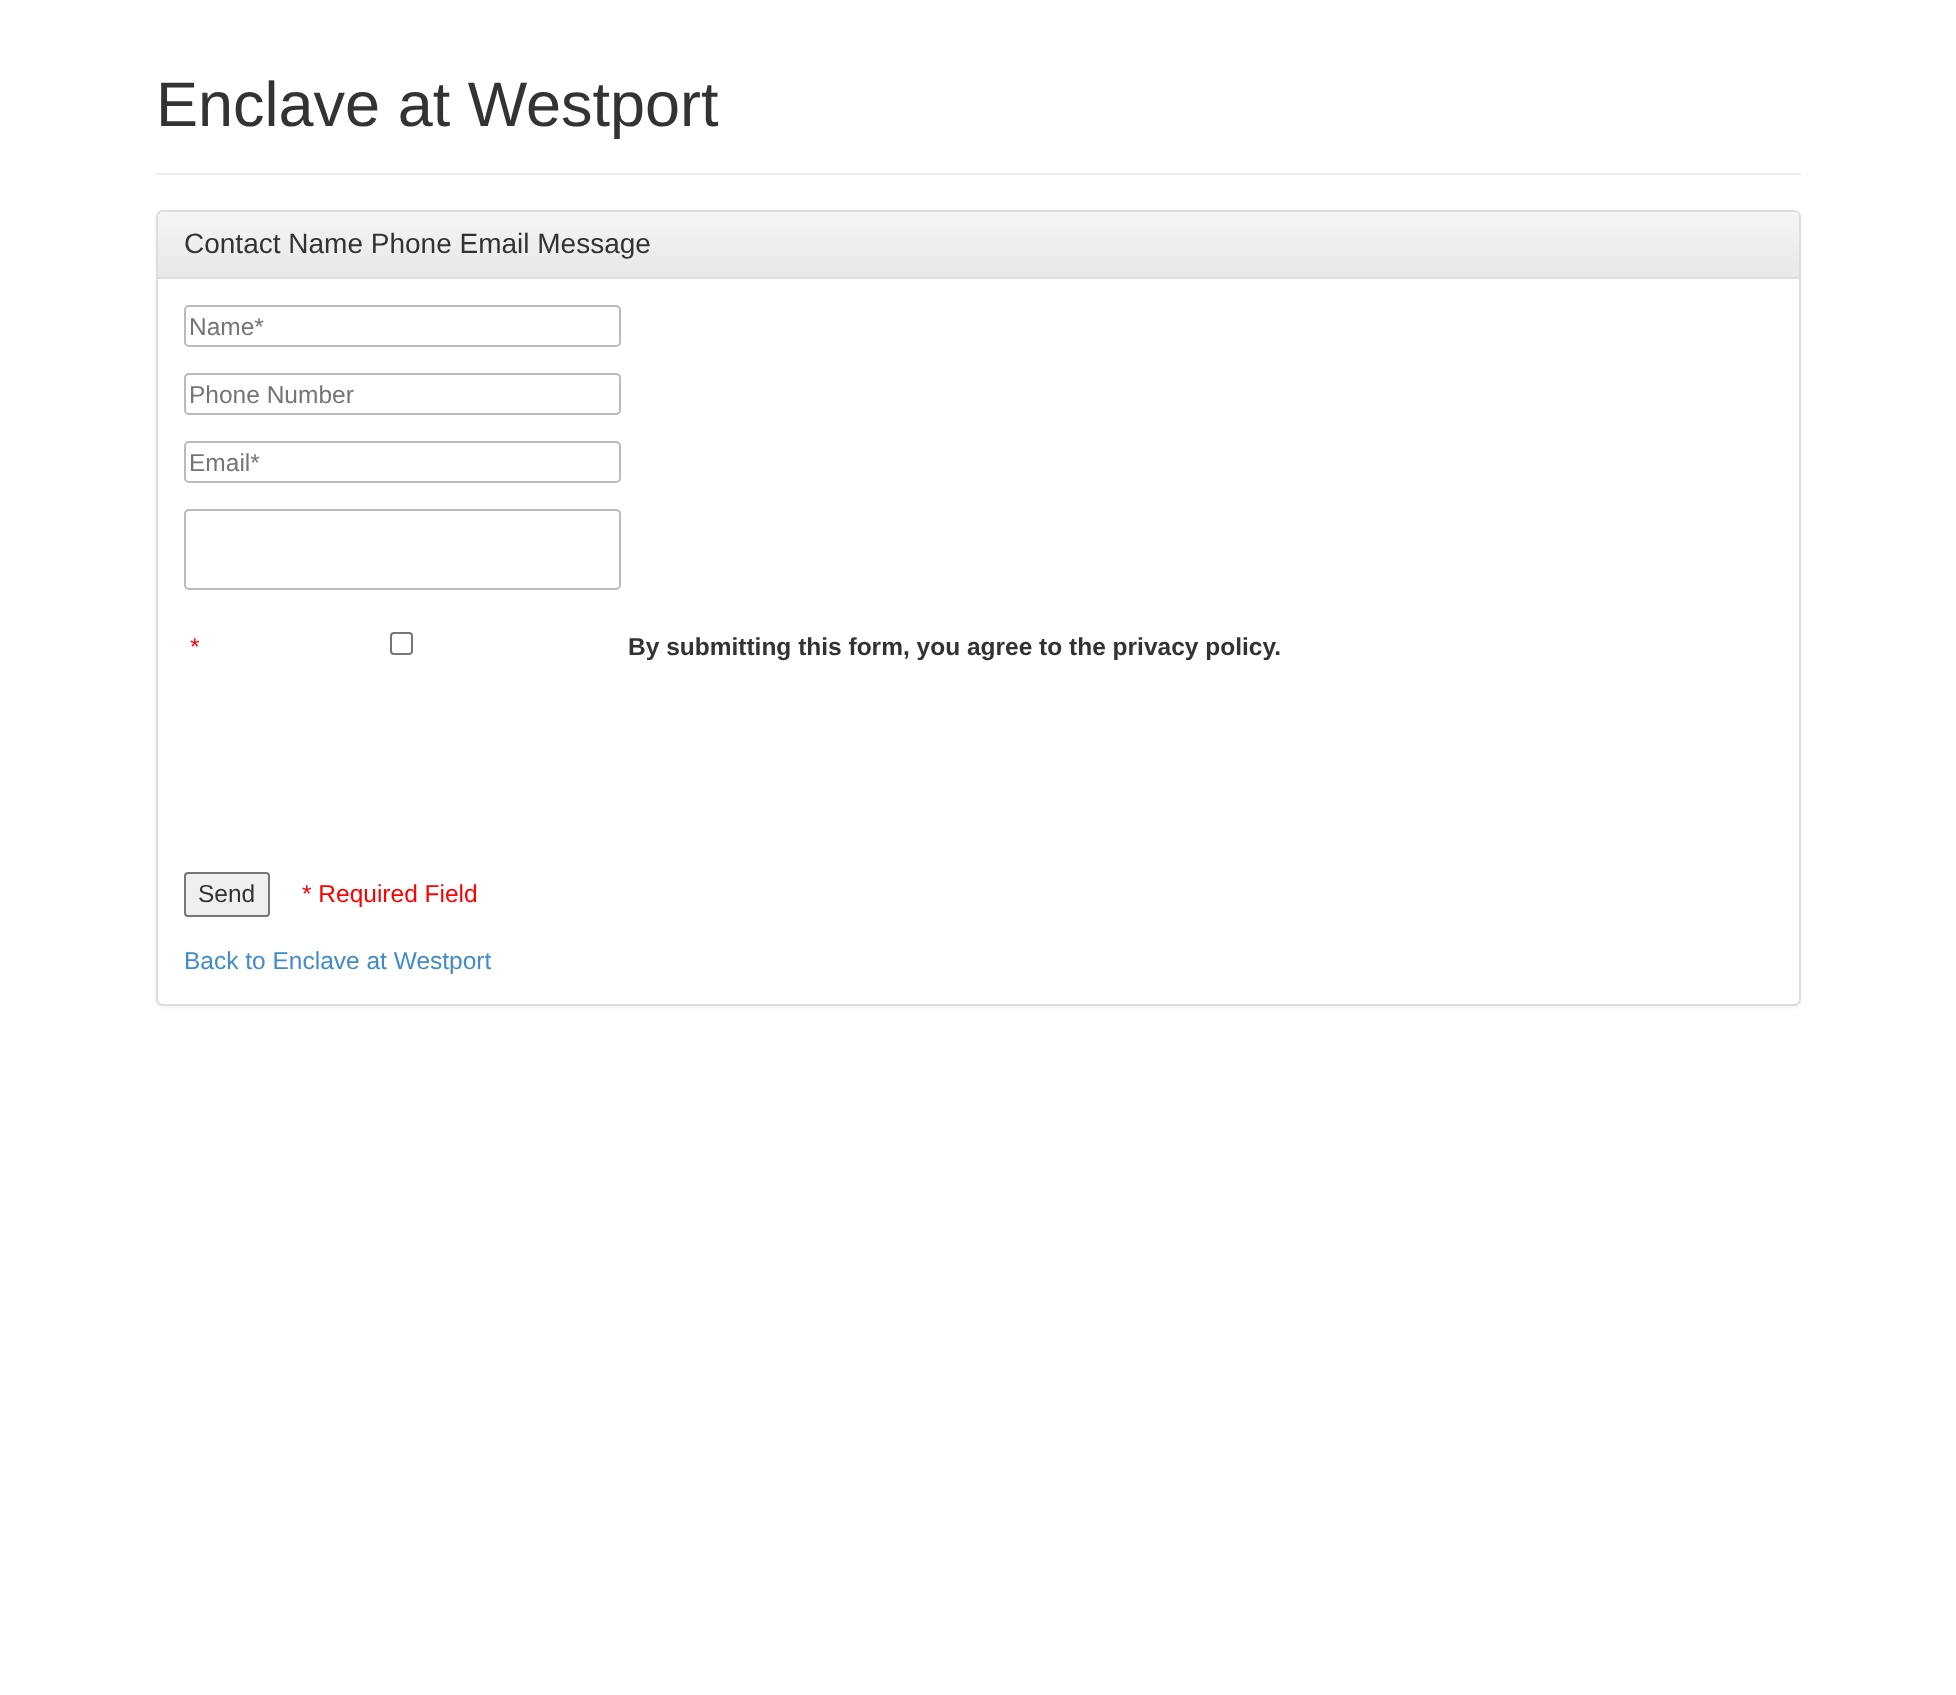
<!DOCTYPE html>
<meta charset="utf-8">
<style>body { margin: 0 } canvas { display: block }</style>
<canvas id="canvas" width="1956" height="1695"></canvas>
<script>
window.onload = function () {
    const canvas = document.getElementById('canvas');
    const context = canvas.getContext('2d');
    context.miterLimit = 4;
    context.fontKerning = 'normal';
    let gradient;

    context.fillStyle = 'rgb(255, 255, 255)';
    context.fillRect(0, 0, 1956, 1695);
    context.fillStyle = 'rgb(238, 238, 238)';
    context.fillRect(156, 173, 1645, 2);
    context.fillStyle = 'rgba(0, 0, 0, 0.05)';
    context.filter = 'blur(2px)';
    context.beginPath();
    context.roundRect(156, 212, 1645, 796, 7);
    context.fill();
    context.filter = 'none';
    context.fillStyle = 'rgb(255, 255, 255)';
    context.beginPath();
    context.roundRect(157, 211, 1643, 794, 6);
    context.fill();
    context.strokeStyle = 'rgb(221, 221, 221)';
    context.lineWidth = 2;
    context.stroke();
    gradient = context.createLinearGradient(978, 212, 978, 277);
    gradient.addColorStop(0, 'rgb(245, 245, 245)');
    gradient.addColorStop(1, 'rgb(232, 232, 232)');
    context.fillStyle = gradient;
    context.beginPath();
    context.roundRect(158, 212, 1641, 65, [5, 5, 0, 0]);
    context.fill();
    context.fillStyle = 'rgb(221, 221, 221)';
    context.fillRect(158, 277, 1641, 2);
    context.beginPath();
    context.roundRect(185, 306, 435, 40, 4);
    context.strokeStyle = 'rgb(187, 187, 187)';
    context.stroke();
    context.beginPath();
    context.roundRect(185, 374, 435, 40, 4);
    context.stroke();
    context.beginPath();
    context.roundRect(185, 442, 435, 40, 4);
    context.stroke();
    context.beginPath();
    context.roundRect(185, 510, 435, 79, 4);
    context.stroke();
    context.beginPath();
    context.roundRect(391, 633, 21, 21, 3);
    context.strokeStyle = 'rgb(118, 118, 118)';
    context.stroke();
    context.fillStyle = 'rgb(239, 239, 239)';
    context.beginPath();
    context.roundRect(185, 873, 84, 43, 3);
    context.fill();
    context.stroke();
    context.font = '63px Liberation Sans';
    context.fillStyle = 'rgb(51, 51, 51)';
    context.fillText('Enclave at Westport', 156, 126);
    context.font = '28px Liberation Sans';
    context.fillText('Contact Name Phone Email Message', 184, 253);
    context.font = '24.5px Liberation Sans';
    context.fillStyle = 'rgb(117, 117, 117)';
    context.fillText('Name*', 189, 335);
    context.fillText('Phone Number', 189, 403);
    context.fillText('Email*', 189, 471);
    context.fillStyle = 'rgb(255, 0, 0)';
    context.fillText('*', 190, 655);
    context.font = 'bold 24.5px Liberation Sans';
    context.fillStyle = 'rgb(51, 51, 51)';
    context.fillText('By submitting this form, you agree to the privacy policy.', 628, 655);
    context.font = '24.5px Liberation Sans';
    context.fillText('Send', 198, 902);
    context.fillStyle = 'rgb(255, 0, 0)';
    context.fillText('* Required Field', 302, 902);
    context.fillStyle = 'rgb(66, 139, 202)';
    context.fillText('Back to Enclave at Westport', 184, 969);
};
</script>
